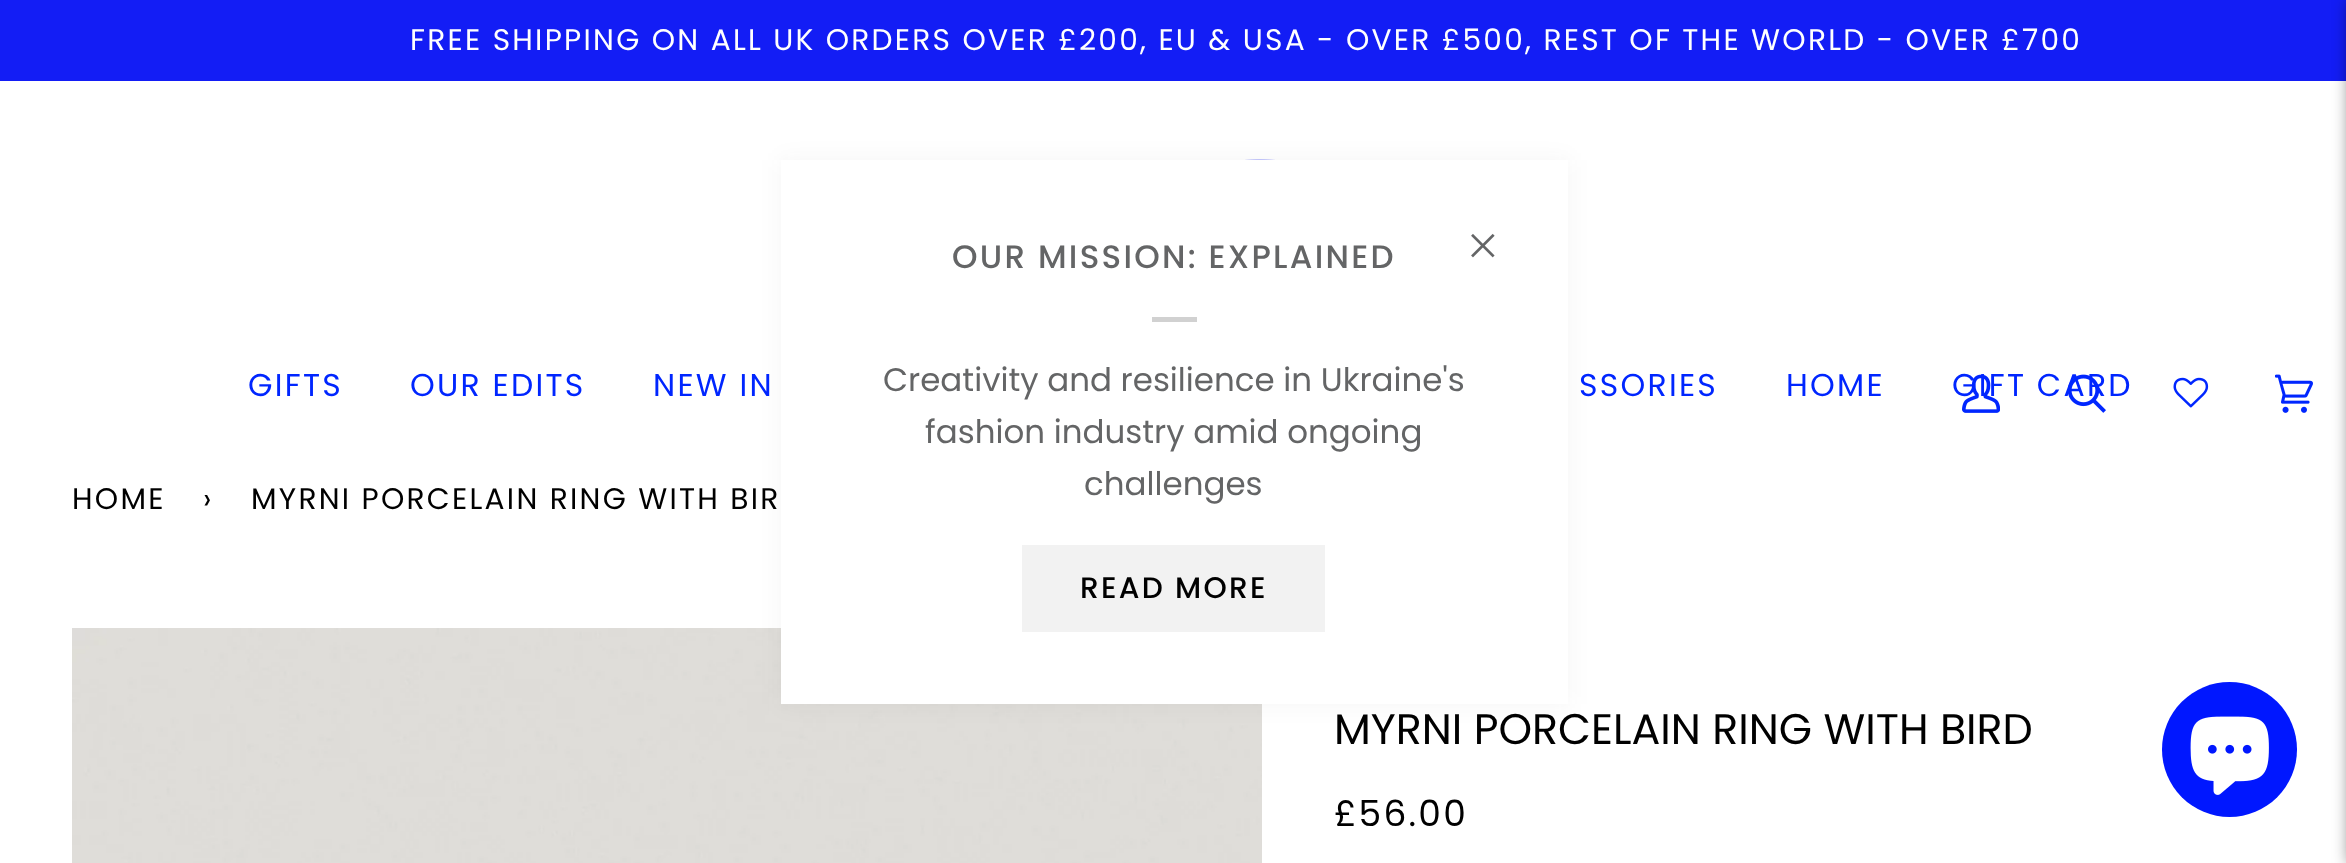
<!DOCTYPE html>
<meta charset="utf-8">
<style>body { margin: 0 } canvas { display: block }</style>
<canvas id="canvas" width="2346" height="863"></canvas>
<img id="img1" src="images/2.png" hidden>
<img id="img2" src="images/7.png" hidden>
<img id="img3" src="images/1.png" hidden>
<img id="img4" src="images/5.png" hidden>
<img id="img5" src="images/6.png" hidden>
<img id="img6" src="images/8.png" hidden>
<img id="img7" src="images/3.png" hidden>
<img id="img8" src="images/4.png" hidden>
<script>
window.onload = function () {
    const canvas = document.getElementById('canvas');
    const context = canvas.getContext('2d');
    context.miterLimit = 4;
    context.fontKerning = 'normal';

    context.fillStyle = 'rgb(255, 255, 255)';
    context.fillRect(0, 0, 2346, 863);
    context.fillStyle = 'rgb(19, 29, 245)';
    context.fillRect(0, 0, 2346, 81);
    context.fillStyle = 'rgba(0, 0, 0, 0.5)';
    context.filter = 'blur(8px)';
    context.beginPath();
    context.rect(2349, 0, 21, 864);
    context.fill();
    context.filter = 'none';
    context.drawImage(document.getElementById('img1'), 1245, 159, 30, 1);
    context.drawImage(document.getElementById('img2'), 72, 628, 1190, 235);
    context.fillStyle = 'rgba(34, 35, 36, 0.05)';
    context.filter = 'blur(11px)';
    context.beginPath();
    context.rect(781, 160, 787, 544);
    context.fill();
    context.filter = 'none';
    context.fillStyle = 'rgb(255, 255, 255)';
    context.fillRect(781, 160, 787, 544);
    context.drawImage(document.getElementById('img3'), 1471, 233, 24, 25);
    context.fillStyle = 'rgb(209, 209, 209)';
    context.fillRect(1152, 317, 45, 5);
    context.fillStyle = 'rgb(242, 242, 242)';
    context.fillRect(1022, 545, 303, 87);
    context.drawImage(document.getElementById('img4'), 2173, 377, 36, 31);
    context.drawImage(document.getElementById('img5'), 2275, 374, 38, 39);
    context.fillStyle = 'rgb(0, 23, 255)';
    context.beginPath();
    context.arc(2229.5, 749.5, 67.5, 0, 2 * Math.PI);
    context.fill();
    context.drawImage(document.getElementById('img6'), 2190, 716, 79, 79);
    context.letterSpacing = '2.25px';
    context.font = '29.7px Poppins';
    context.fillStyle = 'rgb(255, 255, 255)';
    context.fillText('FREE SHIPPING ON ALL UK ORDERS OVER £200, EU & USA - OVER £500, REST OF THE WORLD - OVER £700', 410, 50);
    context.font = '500 32.5px Poppins';
    context.fillStyle = 'rgb(100, 101, 102)';
    context.fillText('OUR MISSION: EXPLAINED', 952, 268);
    context.letterSpacing = '0px';
    context.font = '32.5px Poppins';
    context.fillText('Creativity and resilience in Ukraine\'s', 883, 391);
    context.fillText('fashion industry amid ongoing', 925, 443);
    context.fillText('challenges', 1084, 495);
    context.letterSpacing = '2.25px';
    context.font = '500 29.7px Poppins';
    context.fillStyle = 'rgb(0, 0, 0)';
    context.fillText('READ MORE', 1080, 598);
    context.font = '31.5px Poppins';
    context.fillStyle = 'rgb(0, 38, 255)';
    context.fillText('GIFTS', 248, 396);
    context.fillText('OUR EDITS', 410, 396);
    context.fillText('NEW IN', 653, 396);
    context.fillText('SSORIES', 1579, 396);
    context.fillText('HOME', 1786, 396);
    context.fillText('GIFT CARD', 1952, 396);
    context.drawImage(document.getElementById('img7'), 1962, 374, 38, 39);
    context.drawImage(document.getElementById('img8'), 2068, 374, 38, 39);
    context.font = '29.7px Poppins';
    context.fillStyle = 'rgb(0, 0, 0)';
    context.fillText('HOME', 72, 509);
    context.fillText('›', 203, 509);
    context.fillText('MYRNI PORCELAIN RING WITH BIR', 251, 509);
    context.letterSpacing = '0px';
    context.font = '42.75px Poppins';
    context.fillText('MYRNI PORCELAIN RING WITH BIRD', 1334, 744);
    context.letterSpacing = '2.25px';
    context.font = '36px Poppins';
    context.fillText('£56.00', 1334, 826);
};
</script>
